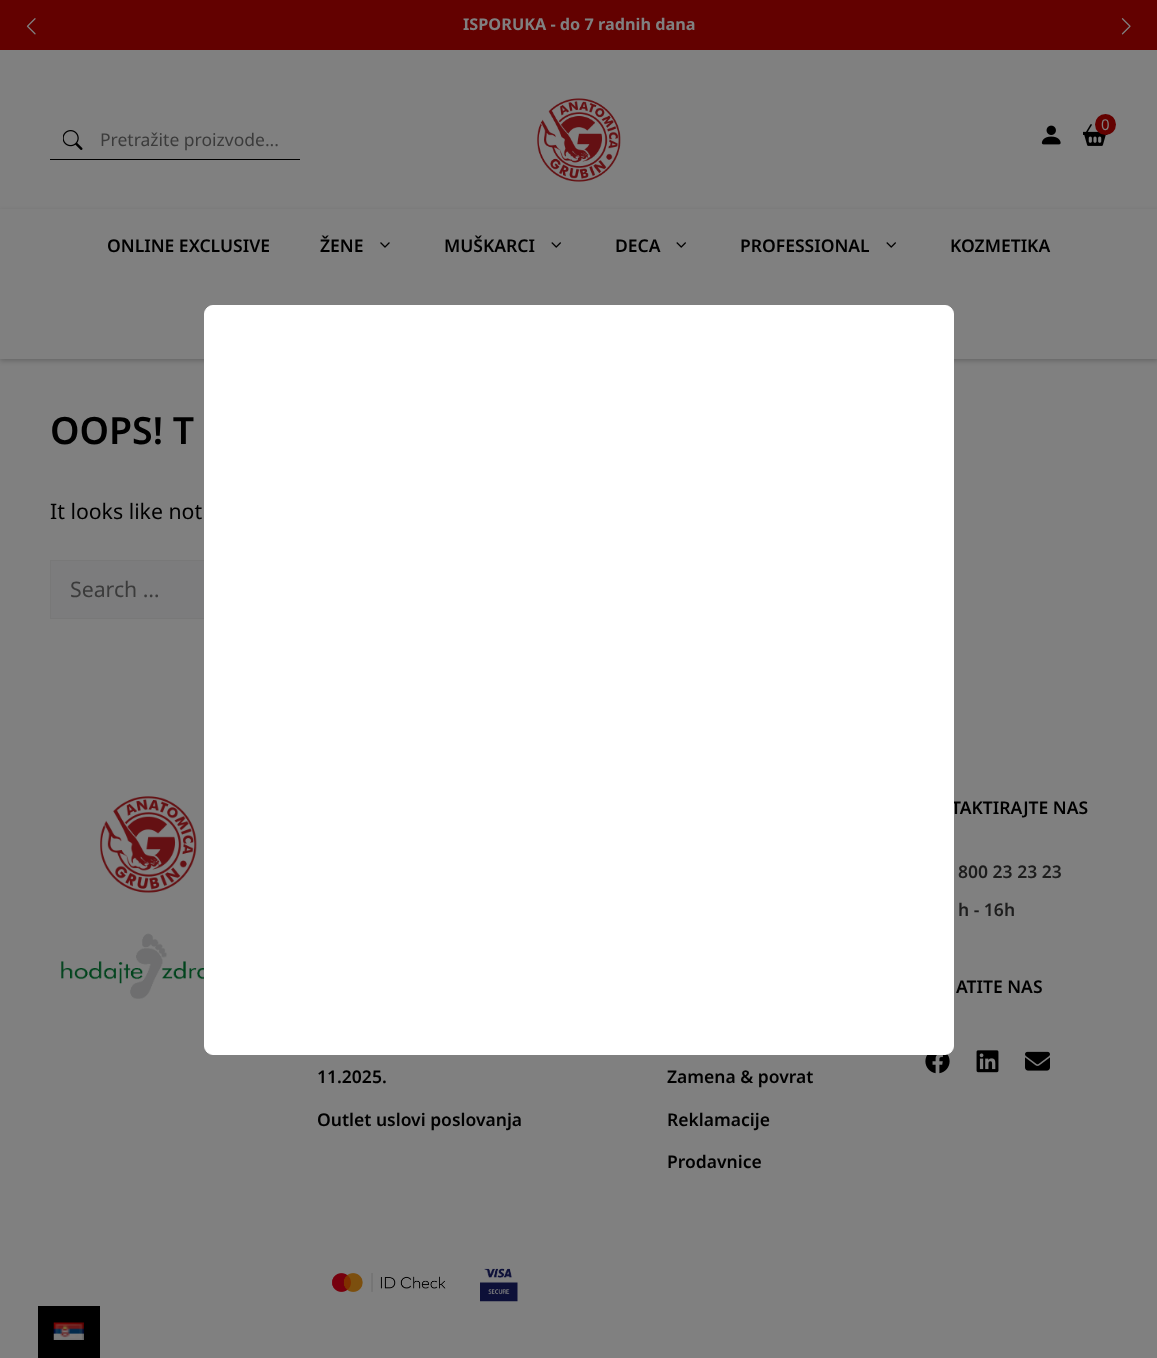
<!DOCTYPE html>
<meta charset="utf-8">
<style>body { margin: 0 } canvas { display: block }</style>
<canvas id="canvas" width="1157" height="1358"></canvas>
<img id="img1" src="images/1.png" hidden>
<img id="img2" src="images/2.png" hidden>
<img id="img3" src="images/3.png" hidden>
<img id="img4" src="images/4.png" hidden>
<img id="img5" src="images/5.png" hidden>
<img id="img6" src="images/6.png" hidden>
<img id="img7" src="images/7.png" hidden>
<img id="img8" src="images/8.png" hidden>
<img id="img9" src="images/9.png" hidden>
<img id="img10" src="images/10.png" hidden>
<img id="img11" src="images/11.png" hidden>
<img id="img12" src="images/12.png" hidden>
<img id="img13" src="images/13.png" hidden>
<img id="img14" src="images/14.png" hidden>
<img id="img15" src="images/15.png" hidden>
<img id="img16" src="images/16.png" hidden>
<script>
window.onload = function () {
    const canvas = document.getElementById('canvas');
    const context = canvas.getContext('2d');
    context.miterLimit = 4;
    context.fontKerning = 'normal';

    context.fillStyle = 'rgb(128, 128, 128)';
    context.fillRect(0, 0, 1157, 1358);
    context.fillStyle = 'rgb(99, 1, 0)';
    context.fillRect(0, 0, 1157, 50);
    context.drawImage(document.getElementById('img1'), 26, 18, 10, 17);
    context.drawImage(document.getElementById('img2'), 1121, 18, 10, 17);
    context.drawImage(document.getElementById('img3'), 537, 98, 84, 84);
    context.drawImage(document.getElementById('img4'), 1041, 125, 20, 20);
    context.drawImage(document.getElementById('img5'), 1083, 124, 25, 22);
    context.beginPath();
    context.arc(1105.5, 124.5, 10.5, 0, 2 * Math.PI);
    context.fill();
    context.drawImage(document.getElementById('img6'), 63, 130, 20, 20);
    context.fillStyle = 'rgb(0, 0, 0)';
    context.fillRect(50, 159, 250, 1);
    context.fillStyle = 'rgba(0, 0, 0, 0.2)';
    context.filter = 'blur(2.5px)';
    context.beginPath();
    context.rect(0, 211, 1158, 150);
    context.fill();
    context.filter = 'none';
    context.fillStyle = 'rgb(128, 128, 128)';
    context.fillRect(0, 209, 1157, 150);
    context.drawImage(document.getElementById('img7'), 380, 242, 10, 6);
    context.drawImage(document.getElementById('img8'), 551, 242, 10, 6);
    context.drawImage(document.getElementById('img8'), 676, 242, 10, 6);
    context.drawImage(document.getElementById('img8'), 886, 242, 10, 6);
    context.fillStyle = 'rgb(124, 124, 125)';
    context.fillRect(51, 561, 153, 57);
    context.strokeStyle = 'rgb(120, 120, 120)';
    context.strokeRect(50.5, 560.5, 349, 58);
    context.drawImage(document.getElementById('img9'), 100, 796, 97, 97);
    context.drawImage(document.getElementById('img10'), 61, 933, 143, 66);
    context.drawImage(document.getElementById('img11'), 925, 1054, 25, 20);
    context.drawImage(document.getElementById('img12'), 976, 1050, 23, 23);
    context.drawImage(document.getElementById('img13'), 1025, 1051, 25, 20);
    context.drawImage(document.getElementById('img14'), 332, 1273, 114, 19);
    context.drawImage(document.getElementById('img15'), 480, 1268, 38, 34);
    context.fillStyle = 'rgb(0, 0, 0)';
    context.fillRect(38, 1306, 62, 52);
    context.drawImage(document.getElementById('img16'), 53, 1322, 31, 18);
    context.font = 'bold 16.25px Noto Sans';
    context.fillStyle = 'rgb(128, 128, 128)';
    context.fillText('ISPORUKA - do 7 radnih dana', 463, 30);
    context.font = '15px Noto Sans';
    context.fillText('0', 1101, 130);
    context.font = '17.5px Noto Sans';
    context.fillStyle = 'rgb(59, 59, 59)';
    context.fillText('Pretražite proizvode...', 100, 146);
    context.font = '600 17.5px Noto Sans';
    context.fillStyle = 'rgb(0, 0, 0)';
    context.fillText('ONLINE EXCLUSIVE', 107, 252);
    context.fillText('ŽENE', 320, 252);
    context.fillText('MUŠKARCI', 444, 252);
    context.fillText('DECA', 615, 252);
    context.fillText('PROFESSIONAL', 740, 252);
    context.fillText('KOZMETIKA', 950, 252);
    context.font = '600 37.5px Noto Sans';
    context.fillText('OOPS! T', 50, 444);
    context.font = '21.25px Noto Sans';
    context.fillText('It looks like not', 50, 519);
    context.fillStyle = 'rgb(59, 59, 59)';
    context.fillText('Search …', 70, 597);
    context.font = '600 17.5px Noto Sans';
    context.fillStyle = 'rgb(0, 0, 0)';
    context.fillText('TAKTIRAJTE NAS', 951, 814);
    context.fillStyle = 'rgb(255, 255, 255)';
    context.beginPath();
    context.roundRect(204.5, 305.5, 749, 749, 8.5);
    context.fill();
    context.strokeStyle = 'rgb(255, 255, 255)';
    context.stroke();
    context.fillStyle = 'rgb(29, 29, 29)';
    context.fillText('800 23 23 23', 958, 878);
    context.fillText('h - 16h', 958, 916);
    context.fillStyle = 'rgb(0, 0, 0)';
    context.fillText('ATITE NAS', 956, 993);
    context.fillText('11.2025.', 317, 1083);
    context.fillText('Outlet uslovi poslovanja', 317, 1126);
    context.fillText('Zamena & povrat', 667, 1083);
    context.fillText('Reklamacije', 667, 1126);
    context.fillText('Prodavnice', 667, 1168);
};
</script>
